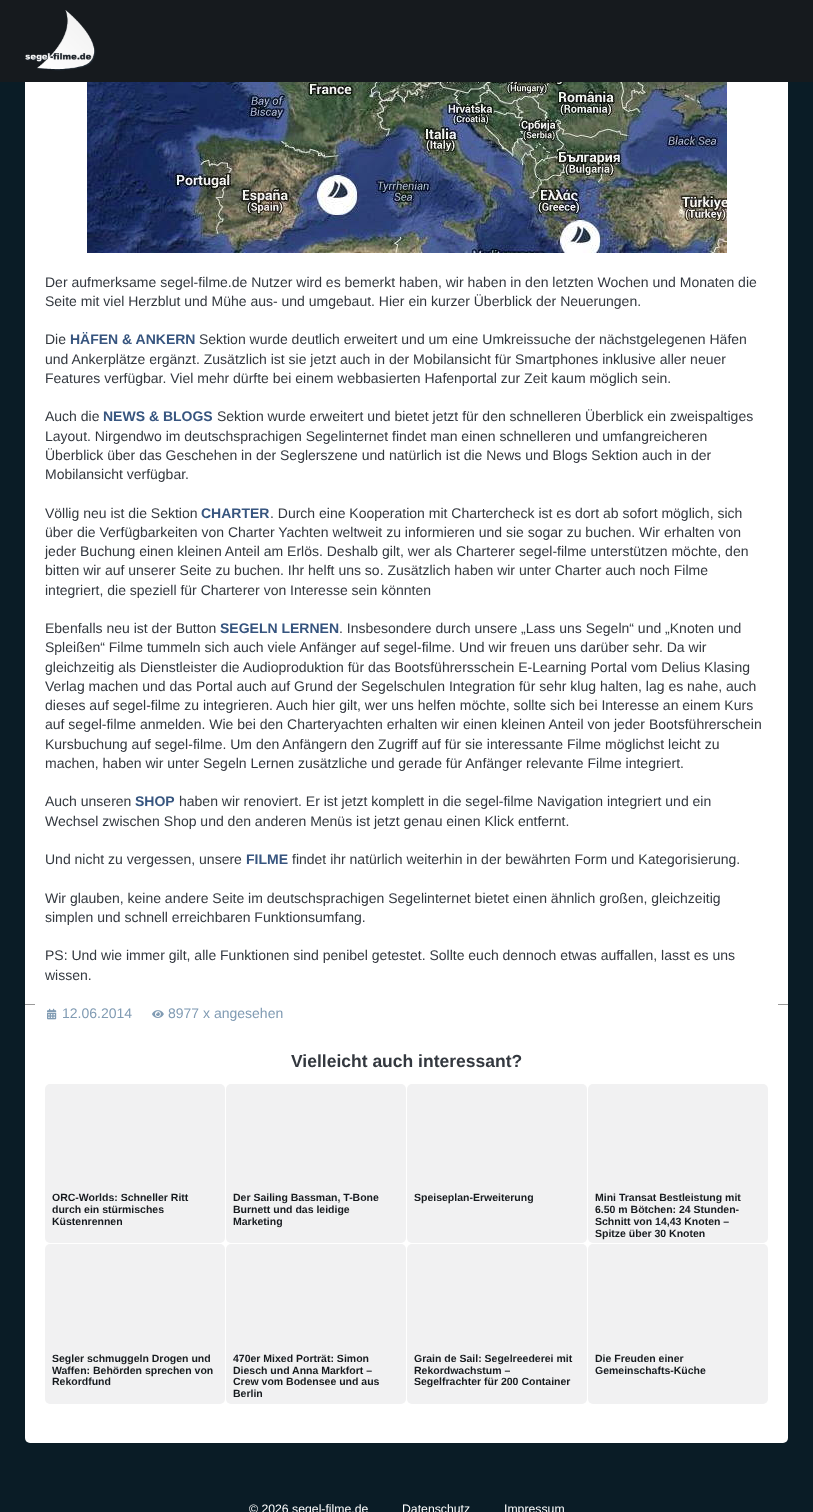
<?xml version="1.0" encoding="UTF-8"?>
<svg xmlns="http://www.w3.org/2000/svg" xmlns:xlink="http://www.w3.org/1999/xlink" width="813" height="1512">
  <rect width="100%" height="100%" fill="#0a1c26" />
  <rect x="25" y="-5" width="763" height="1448" rx="5" fill="#ffffff" />
  <rect width="813" height="82" fill="#161a1e" />
  <image x="25" y="10" width="71" height="61" xlink:href="image1.png" />
  <image x="87" y="82" width="640" height="171" xlink:href="image2.png" />
  <rect x="25" y="1004" width="10" height="1" fill="#999999" />
  <rect x="778" y="1004" width="10" height="1" fill="#999999" />
  <image x="47" y="1008" width="10" height="12" xlink:href="image3.png" />
  <image x="152" y="1010" width="12" height="8" xlink:href="image4.png" />
  <rect x="45" y="1084" width="180" height="159" rx="5" fill="#f1f1f2" />
  <rect x="226" y="1084" width="180" height="159" rx="5" fill="#f1f1f2" />
  <rect x="407" y="1084" width="180" height="159" rx="5" fill="#f1f1f2" />
  <rect x="588" y="1084" width="180" height="159" rx="5" fill="#f1f1f2" />
  <rect x="45" y="1244" width="180" height="160" rx="5" fill="#f1f1f2" />
  <rect x="226" y="1244" width="180" height="160" rx="5" fill="#f1f1f2" />
  <rect x="407" y="1244" width="180" height="160" rx="5" fill="#f1f1f2" />
  <rect x="588" y="1244" width="180" height="160" rx="5" fill="#f1f1f2" />
  <text x="45" y="287" style="font-family: Liberation Sans; font-size: 14px; fill: #33383f">Der aufmerksame segel-filme.de Nutzer wird es bemerkt haben, wir haben in den letzten Wochen und Monaten die</text>
  <text x="45" y="306" style="font-family: Liberation Sans; font-size: 14px; fill: #33383f">Seite mit viel Herzblut und Mühe aus- und umgebaut. Hier ein kurzer Überblick der Neuerungen.</text>
  <text x="45" y="344" style="font-family: Liberation Sans; font-size: 14px; fill: #33383f">Die</text>
  <text x="70" y="344" style="font-family: Liberation Sans; font-size: 14px; font-weight: bold; fill: #37557f">HÄFEN &amp; ANKERN</text>
  <text x="199" y="344" style="font-family: Liberation Sans; font-size: 14px; fill: #33383f">Sektion wurde deutlich erweitert und um eine Umkreissuche der nächstgelegenen Häfen</text>
  <text x="45" y="364" style="font-family: Liberation Sans; font-size: 14px; fill: #33383f">und Ankerplätze ergänzt. Zusätzlich ist sie jetzt auch in der Mobilansicht für Smartphones inklusive aller neuer</text>
  <text x="45" y="383" style="font-family: Liberation Sans; font-size: 14px; fill: #33383f">Features verfügbar. Viel mehr dürfte bei einem webbasierten Hafenportal zur Zeit kaum möglich sein.</text>
  <text x="45" y="421" style="font-family: Liberation Sans; font-size: 14px; fill: #33383f">Auch die</text>
  <text x="103" y="421" style="font-family: Liberation Sans; font-size: 14px; font-weight: bold; fill: #37557f">NEWS &amp; BLOGS</text>
  <text x="217" y="421" style="font-family: Liberation Sans; font-size: 14px; fill: #33383f">Sektion wurde erweitert und bietet jetzt für den schnelleren Überblick ein zweispaltiges</text>
  <text x="45" y="441" style="font-family: Liberation Sans; font-size: 14px; fill: #33383f">Layout. Nirgendwo im deutschsprachigen Segelinternet findet man einen schnelleren und umfangreicheren</text>
  <text x="45" y="460" style="font-family: Liberation Sans; font-size: 14px; fill: #33383f">Überblick über das Geschehen in der Seglerszene und natürlich ist die News und Blogs Sektion auch in der</text>
  <text x="45" y="479" style="font-family: Liberation Sans; font-size: 14px; fill: #33383f">Mobilansicht verfügbar.</text>
  <text x="45" y="518" style="font-family: Liberation Sans; font-size: 14px; fill: #33383f">Völlig neu ist die Sektion</text>
  <text x="201" y="518" style="font-family: Liberation Sans; font-size: 14px; font-weight: bold; fill: #37557f">CHARTER</text>
  <text x="270" y="518" style="font-family: Liberation Sans; font-size: 14px; fill: #33383f">. Durch eine Kooperation mit Chartercheck ist es dort ab sofort möglich, sich</text>
  <text x="45" y="537" style="font-family: Liberation Sans; font-size: 14px; fill: #33383f">über die Verfügbarkeiten von Charter Yachten weltweit zu informieren und sie sogar zu buchen. Wir erhalten von</text>
  <text x="45" y="556" style="font-family: Liberation Sans; font-size: 14px; fill: #33383f">jeder Buchung einen kleinen Anteil am Erlös. Deshalb gilt, wer als Charterer segel-filme unterstützen möchte, den</text>
  <text x="45" y="575" style="font-family: Liberation Sans; font-size: 14px; fill: #33383f">bitten wir auf unserer Seite zu buchen. Ihr helft uns so. Zusätzlich haben wir unter Charter auch noch Filme</text>
  <text x="45" y="595" style="font-family: Liberation Sans; font-size: 14px; fill: #33383f">integriert, die speziell für Charterer von Interesse sein könnten</text>
  <text x="45" y="633" style="font-family: Liberation Sans; font-size: 14px; fill: #33383f">Ebenfalls neu ist der Button</text>
  <text x="220" y="633" style="font-family: Liberation Sans; font-size: 14px; font-weight: bold; fill: #37557f">SEGELN LERNEN</text>
  <text x="339" y="633" style="font-family: Liberation Sans; font-size: 14px; fill: #33383f">. Insbesondere durch unsere „Lass uns Segeln“ und „Knoten und</text>
  <text x="45" y="652" style="font-family: Liberation Sans; font-size: 14px; fill: #33383f">Spleißen“ Filme tummeln sich auch viele Anfänger auf segel-filme. Und wir freuen uns darüber sehr. Da wir</text>
  <text x="45" y="672" style="font-family: Liberation Sans; font-size: 14px; fill: #33383f">gleichzeitig als Dienstleister die Audioproduktion für das Bootsführersschein E-Learning Portal vom Delius Klasing</text>
  <text x="45" y="691" style="font-family: Liberation Sans; font-size: 14px; fill: #33383f">Verlag machen und das Portal auch auf Grund der Segelschulen Integration für sehr klug halten, lag es nahe, auch</text>
  <text x="45" y="710" style="font-family: Liberation Sans; font-size: 14px; fill: #33383f">dieses auf segel-filme zu integrieren. Auch hier gilt, wer uns helfen möchte, sollte sich bei Interesse an einem Kurs</text>
  <text x="45" y="729" style="font-family: Liberation Sans; font-size: 14px; fill: #33383f">auf segel-filme anmelden. Wie bei den Charteryachten erhalten wir einen kleinen Anteil von jeder Bootsführerschein</text>
  <text x="45" y="749" style="font-family: Liberation Sans; font-size: 14px; fill: #33383f">Kursbuchung auf segel-filme. Um den Anfängern den Zugriff auf für sie interessante Filme möglichst leicht zu</text>
  <text x="45" y="768" style="font-family: Liberation Sans; font-size: 14px; fill: #33383f">machen, haben wir unter Segeln Lernen zusätzliche und gerade für Anfänger relevante Filme integriert.</text>
  <text x="45" y="806" style="font-family: Liberation Sans; font-size: 14px; fill: #33383f">Auch unseren</text>
  <text x="135" y="806" style="font-family: Liberation Sans; font-size: 14px; font-weight: bold; fill: #37557f">SHOP</text>
  <text x="179" y="806" style="font-family: Liberation Sans; font-size: 14px; fill: #33383f">haben wir renoviert. Er ist jetzt komplett in die segel-filme Navigation integriert und ein</text>
  <text x="45" y="826" style="font-family: Liberation Sans; font-size: 14px; fill: #33383f">Wechsel zwischen Shop und den anderen Menüs ist jetzt genau einen Klick entfernt.</text>
  <text x="45" y="864" style="font-family: Liberation Sans; font-size: 14px; fill: #33383f">Und nicht zu vergessen, unsere</text>
  <text x="246" y="864" style="font-family: Liberation Sans; font-size: 14px; font-weight: bold; fill: #37557f">FILME</text>
  <text x="292" y="864" style="font-family: Liberation Sans; font-size: 14px; fill: #33383f">findet ihr natürlich weiterhin in der bewährten Form und Kategorisierung.</text>
  <text x="45" y="903" style="font-family: Liberation Sans; font-size: 14px; fill: #33383f">Wir glauben, keine andere Seite im deutschsprachigen Segelinternet bietet einen ähnlich großen, gleichzeitig</text>
  <text x="45" y="922" style="font-family: Liberation Sans; font-size: 14px; fill: #33383f">simplen und schnell erreichbaren Funktionsumfang.</text>
  <text x="45" y="960" style="font-family: Liberation Sans; font-size: 14px; fill: #33383f">PS: Und wie immer gilt, alle Funktionen sind penibel getestet. Sollte euch dennoch etwas auffallen, lasst es uns</text>
  <text x="45" y="980" style="font-family: Liberation Sans; font-size: 14px; fill: #33383f">wissen.</text>
  <text x="62" y="1018" style="font-family: Liberation Sans; font-size: 14px; fill: #809bb3">12.06.2014</text>
  <text x="168" y="1018" style="font-family: Liberation Sans; font-size: 14px; fill: #809bb3">8977 x angesehen</text>
  <text x="291" y="1067" style="font-family: Liberation Sans; font-size: 17.5px; font-weight: bold; fill: #33383f">Vielleicht auch interessant?</text>
  <text x="52" y="1201" style="font-family: Liberation Sans; font-size: 10.5px; font-weight: bold; fill: #161a1e">ORC-Worlds: Schneller Ritt</text>
  <text x="52" y="1213" style="font-family: Liberation Sans; font-size: 10.5px; font-weight: bold; fill: #161a1e">durch ein stürmisches</text>
  <text x="52" y="1225" style="font-family: Liberation Sans; font-size: 10.5px; font-weight: bold; fill: #161a1e">Küstenrennen</text>
  <text x="233" y="1201" style="font-family: Liberation Sans; font-size: 10.5px; font-weight: bold; fill: #161a1e">Der Sailing Bassman, T-Bone</text>
  <text x="233" y="1213" style="font-family: Liberation Sans; font-size: 10.5px; font-weight: bold; fill: #161a1e">Burnett und das leidige</text>
  <text x="233" y="1225" style="font-family: Liberation Sans; font-size: 10.5px; font-weight: bold; fill: #161a1e">Marketing</text>
  <text x="414" y="1201" style="font-family: Liberation Sans; font-size: 10.5px; font-weight: bold; fill: #161a1e">Speiseplan-Erweiterung</text>
  <text x="595" y="1201" style="font-family: Liberation Sans; font-size: 10.5px; font-weight: bold; fill: #161a1e">Mini Transat Bestleistung mit</text>
  <text x="595" y="1213" style="font-family: Liberation Sans; font-size: 10.5px; font-weight: bold; fill: #161a1e">6.50 m Bötchen: 24 Stunden-</text>
  <text x="595" y="1225" style="font-family: Liberation Sans; font-size: 10.5px; font-weight: bold; fill: #161a1e">Schnitt von 14,43 Knoten –</text>
  <text x="595" y="1237" style="font-family: Liberation Sans; font-size: 10.5px; font-weight: bold; fill: #161a1e">Spitze über 30 Knoten</text>
  <text x="52" y="1362" style="font-family: Liberation Sans; font-size: 10.5px; font-weight: bold; fill: #161a1e">Segler schmuggeln Drogen und</text>
  <text x="52" y="1374" style="font-family: Liberation Sans; font-size: 10.5px; font-weight: bold; fill: #161a1e">Waffen: Behörden sprechen von</text>
  <text x="52" y="1385" style="font-family: Liberation Sans; font-size: 10.5px; font-weight: bold; fill: #161a1e">Rekordfund</text>
  <text x="233" y="1362" style="font-family: Liberation Sans; font-size: 10.5px; font-weight: bold; fill: #161a1e">470er Mixed Porträt: Simon</text>
  <text x="233" y="1374" style="font-family: Liberation Sans; font-size: 10.5px; font-weight: bold; fill: #161a1e">Diesch und Anna Markfort –</text>
  <text x="233" y="1385" style="font-family: Liberation Sans; font-size: 10.5px; font-weight: bold; fill: #161a1e">Crew vom Bodensee und aus</text>
  <text x="233" y="1397" style="font-family: Liberation Sans; font-size: 10.5px; font-weight: bold; fill: #161a1e">Berlin</text>
  <text x="414" y="1362" style="font-family: Liberation Sans; font-size: 10.5px; font-weight: bold; fill: #161a1e">Grain de Sail: Segelreederei mit</text>
  <text x="414" y="1374" style="font-family: Liberation Sans; font-size: 10.5px; font-weight: bold; fill: #161a1e">Rekordwachstum –</text>
  <text x="414" y="1385" style="font-family: Liberation Sans; font-size: 10.5px; font-weight: bold; fill: #161a1e">Segelfrachter für 200 Container</text>
  <text x="595" y="1362" style="font-family: Liberation Sans; font-size: 10.5px; font-weight: bold; fill: #161a1e">Die Freuden einer</text>
  <text x="595" y="1374" style="font-family: Liberation Sans; font-size: 10.5px; font-weight: bold; fill: #161a1e">Gemeinschafts-Küche</text>
  <text x="249" y="1513" style="font-family: Liberation Sans; font-size: 12.25px; fill: #ffffff">© 2026 segel-filme.de</text>
  <text x="402" y="1513" style="font-family: Liberation Sans; font-size: 12.25px; fill: #ffffff">Datenschutz</text>
  <text x="504" y="1513" style="font-family: Liberation Sans; font-size: 12.25px; fill: #ffffff">Impressum</text>
</svg>
